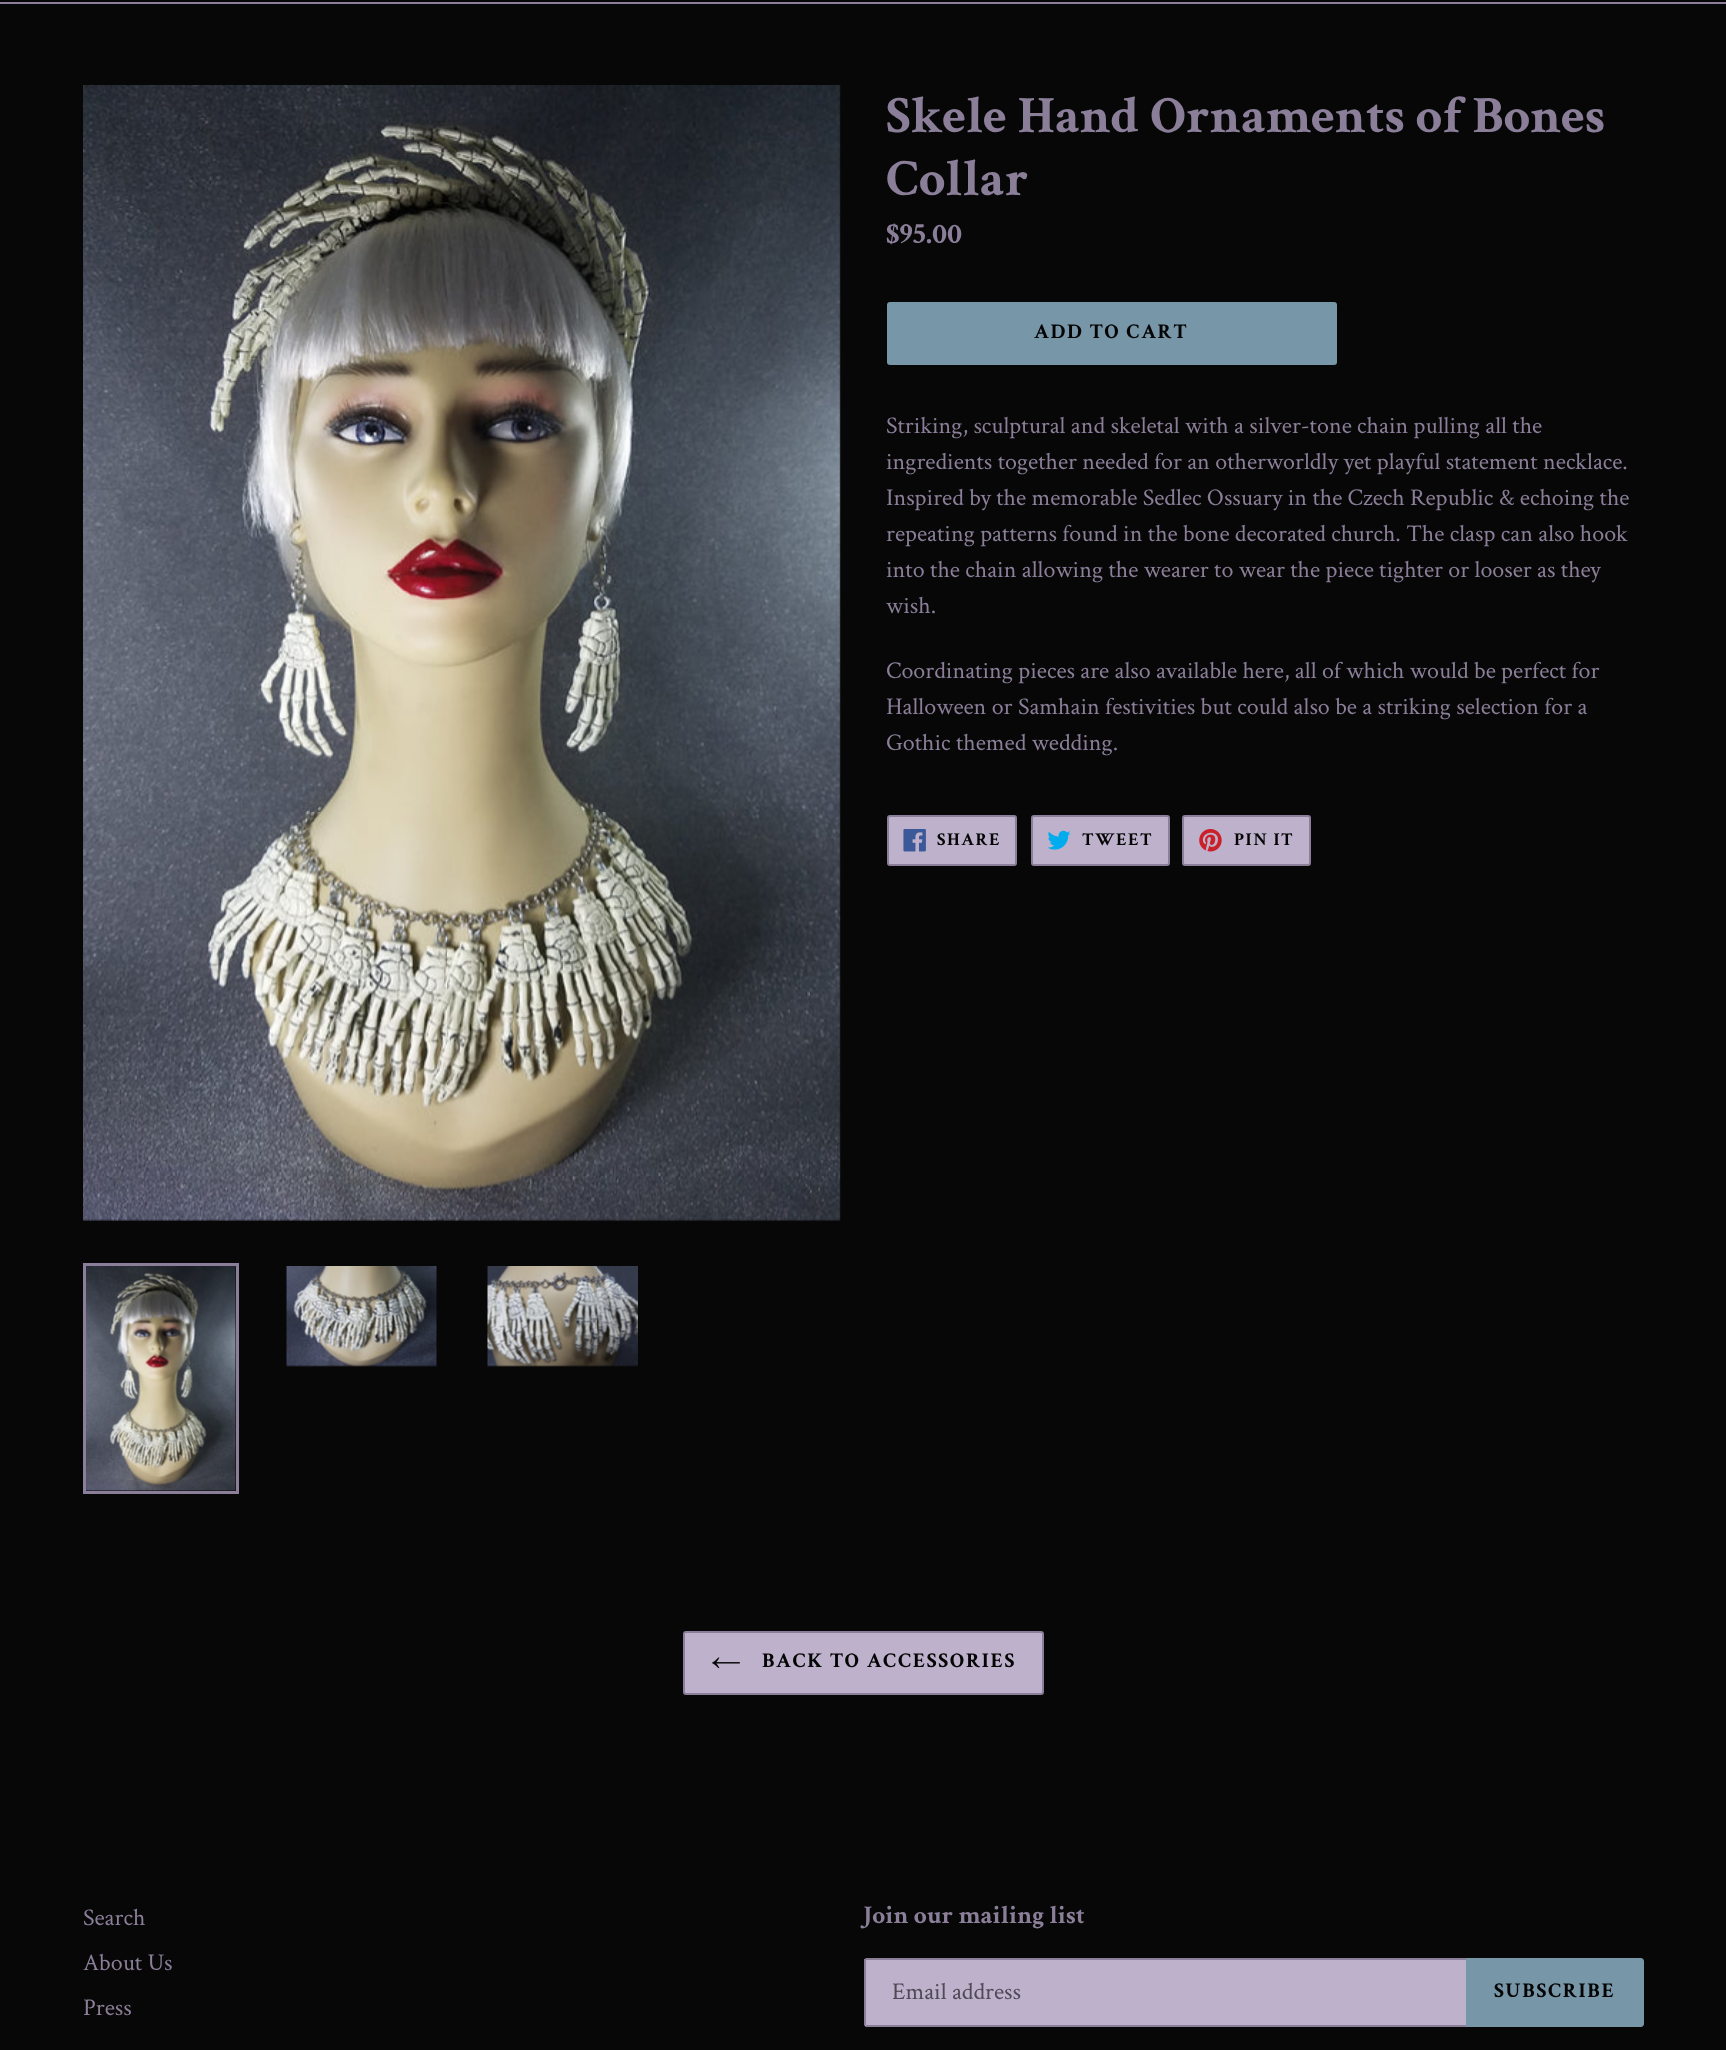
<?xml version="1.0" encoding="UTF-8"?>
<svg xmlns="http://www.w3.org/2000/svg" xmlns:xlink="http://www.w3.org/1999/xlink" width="1726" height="2050">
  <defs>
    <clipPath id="clip1"><rect x="893" y="1976" width="546" height="31" /></clipPath>
  </defs>
  <rect width="100%" height="100%" fill="#070707" />
  <rect y="2" width="1726" height="2" fill="#8a7e98" />
  <image x="83" y="85" width="758" height="1136" xlink:href="image1.png" />
  <rect x="84.5" y="1264.5" width="153" height="228" fill="none" stroke="#8a7e98" stroke-width="3" />
  <image x="86" y="1266" width="150" height="225" xlink:href="image2.png" />
  <image x="286" y="1266" width="151" height="101" xlink:href="image3.png" />
  <image x="487" y="1266" width="151" height="101" xlink:href="image4.png" />
  <rect x="887" y="302" width="450" height="63" rx="3" fill="#7796a8" />
  <rect x="888" y="816" width="128" height="49" rx="2" fill="#bdb1cc" stroke="#8a7e98" stroke-width="2" />
  <image x="903" y="829" width="23" height="23" xlink:href="image5.png" />
  <rect x="1032" y="816" width="137" height="49" rx="2" fill="#bdb1cc" stroke="#8a7e98" stroke-width="2" />
  <image x="1047" y="830" width="24" height="20" xlink:href="image6.png" />
  <rect x="1183" y="816" width="127" height="49" rx="2" fill="#bdb1cc" stroke="#8a7e98" stroke-width="2" />
  <image x="1199" y="829" width="23" height="23" xlink:href="image7.png" />
  <rect x="684" y="1632" width="359" height="62" rx="2" fill="#bdb1cc" stroke="#8a7e98" stroke-width="2" />
  <image x="712" y="1657" width="28" height="12" xlink:href="image8.png" />
  <path d="M 867 1958 h 599 v 69 h -599 c -1.5 0 -3 -1.5 -3 -3 v -63 c 0 -1.5 1.5 -3 3 -3 z" fill="#bdb1cc" />
  <rect x="866" y="1958" width="600" height="2" fill="#8a7e98" />
  <rect x="866" y="2025" width="600" height="2" fill="#8a7e98" />
  <rect x="864" y="1959" width="2" height="66" fill="#8a7e98" />
  <path d="M 1466 1958 h 175 c 1.5 0 3 1.5 3 3 v 63 c 0 1.5 -1.5 3 -3 3 h -175 z" fill="#7796a8" />
  <text x="886" y="132" style="font-family: Crimson Text; font-size: 52.5px; font-weight: bold; fill: #8a7e98">Skele Hand Ornaments of Bones</text>
  <text x="886" y="195" style="font-family: Crimson Text; font-size: 52.5px; font-weight: bold; fill: #8a7e98">Collar</text>
  <text x="886" y="243" style="font-family: Crimson Text; font-size: 30px; font-weight: bold; fill: #8a7e98">$95.00</text>
  <text x="1034" y="338" style="font-family: Crimson Text; font-size: 21px; font-weight: bold; letter-spacing: 1.7px; fill: #050505">ADD TO CART</text>
  <text x="886" y="433" style="font-family: Crimson Text; font-size: 24px; fill: #8a7e98">Striking, sculptural and skeletal with a silver-tone chain pulling all the</text>
  <text x="886" y="469" style="font-family: Crimson Text; font-size: 24px; fill: #8a7e98">ingredients together needed for an otherworldly yet playful statement necklace.</text>
  <text x="886" y="505" style="font-family: Crimson Text; font-size: 24px; fill: #8a7e98">Inspired by the memorable Sedlec Ossuary in the Czech Republic &amp; echoing the</text>
  <text x="886" y="541" style="font-family: Crimson Text; font-size: 24px; fill: #8a7e98">repeating patterns found in the bone decorated church. The clasp can also hook</text>
  <text x="886" y="577" style="font-family: Crimson Text; font-size: 24px; fill: #8a7e98">into the chain allowing the wearer to wear the piece tighter or looser as they</text>
  <text x="886" y="613" style="font-family: Crimson Text; font-size: 24px; fill: #8a7e98">wish.</text>
  <text x="886" y="678" style="font-family: Crimson Text; font-size: 24px; fill: #8a7e98">Coordinating pieces are also available here, all of which would be perfect for</text>
  <text x="886" y="714" style="font-family: Crimson Text; font-size: 24px; fill: #8a7e98">Halloween or Samhain festivities but could also be a striking selection for a</text>
  <text x="886" y="750" style="font-family: Crimson Text; font-size: 24px; fill: #8a7e98">Gothic themed wedding.</text>
  <text x="937" y="845" style="font-family: Crimson Text; font-size: 18px; font-weight: bold; letter-spacing: 1.5px; fill: #050505">SHARE</text>
  <text x="1082" y="845" style="font-family: Crimson Text; font-size: 18px; font-weight: bold; letter-spacing: 1.5px; fill: #050505">TWEET</text>
  <text x="1234" y="845" style="font-family: Crimson Text; font-size: 18px; font-weight: bold; letter-spacing: 1.5px; fill: #050505">PIN IT</text>
  <text x="762" y="1667" style="font-family: Crimson Text; font-size: 21px; font-weight: bold; letter-spacing: 1.7px; fill: #050505">BACK TO ACCESSORIES</text>
  <text x="83" y="1925" style="font-family: Crimson Text; font-size: 24px; fill: #8a7e98">Search</text>
  <text x="83" y="1970" style="font-family: Crimson Text; font-size: 24px; fill: #8a7e98">About Us</text>
  <text x="83" y="2015" style="font-family: Crimson Text; font-size: 24px; fill: #8a7e98">Press</text>
  <text x="863" y="1923" style="font-family: Crimson Text; font-size: 25.5px; font-weight: bold; fill: #8a7e98">Join our mailing list</text>
  <g clip-path="url(#clip1)">
    <text x="892" y="1999" style="font-family: Crimson Text; font-size: 24px; fill: #504a56">Email address</text>
  </g>
  <text x="1494" y="1997" style="font-family: Crimson Text; font-size: 21px; font-weight: bold; letter-spacing: 1.7px; fill: #050505">SUBSCRIBE</text>
</svg>
